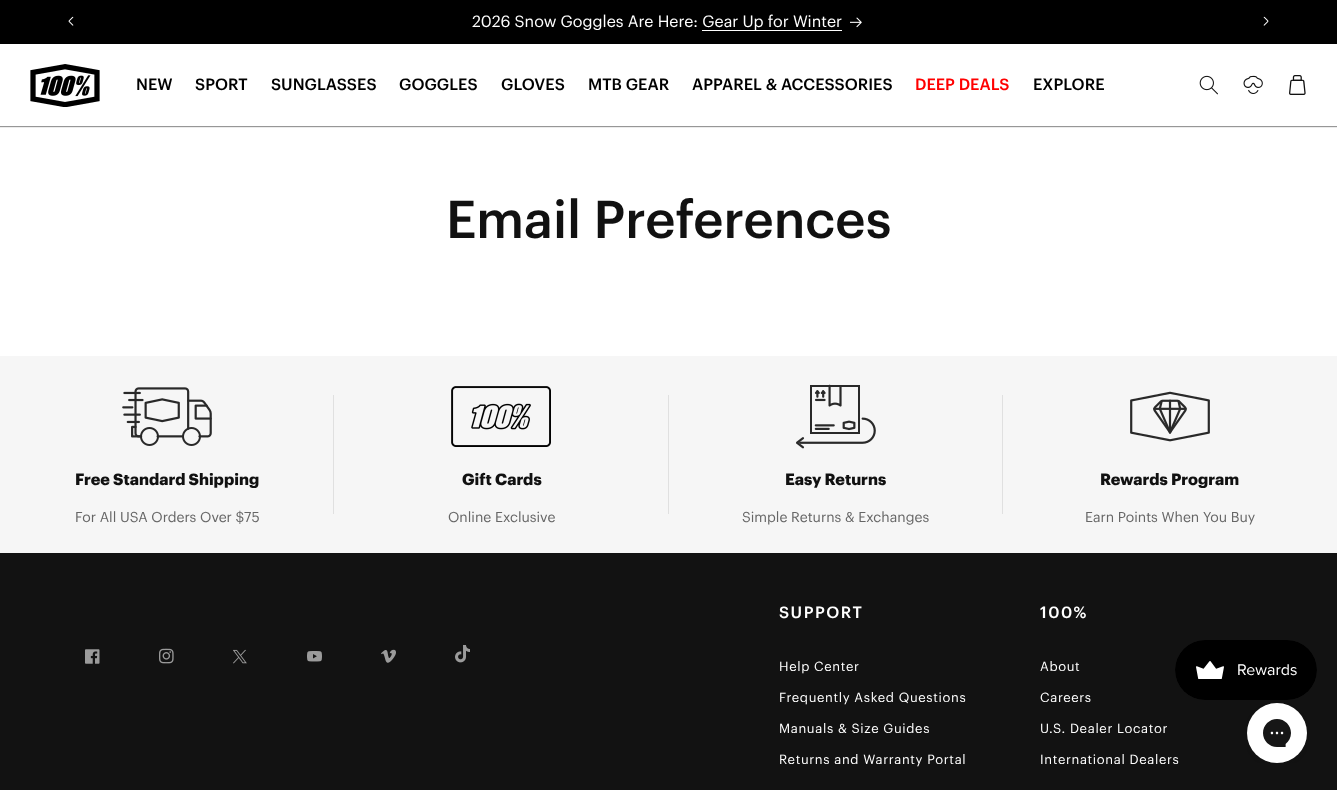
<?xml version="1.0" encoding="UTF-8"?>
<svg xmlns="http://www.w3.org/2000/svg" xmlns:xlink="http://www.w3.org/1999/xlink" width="1337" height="790">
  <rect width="100%" height="100%" fill="#ffffff" />
  <rect width="1337" height="44" fill="#000000" />
  <image x="68" y="16" width="6" height="10" xlink:href="image1.png" />
  <rect x="702" y="30" width="140" height="1" fill="#ffffff" />
  <image x="850" y="17" width="12" height="11" xlink:href="image2.png" />
  <image x="1263" y="16" width="6" height="10" xlink:href="image3.png" />
  <rect y="127" width="1337" height="1" fill="#ececec" />
  <rect y="126" width="1337" height="1" fill="#979797" />
  <image x="30" y="64" width="70" height="43" xlink:href="image4.png" />
  <image x="1199" y="75" width="19" height="20" xlink:href="image5.png" />
  <image x="1243" y="75" width="20" height="19" xlink:href="image6.png" />
  <image x="1289" y="75" width="17" height="20" xlink:href="image7.png" />
  <rect y="356" width="1337" height="197" fill="#f6f6f6" />
  <image x="122" y="387" width="90" height="59" xlink:href="image8.png" />
  <rect x="333" y="395" width="1" height="119" fill="#e0e0e0" />
  <image x="451" y="386" width="100" height="61" xlink:href="image9.png" />
  <rect x="668" y="395" width="1" height="119" fill="#e0e0e0" />
  <image x="796" y="384" width="80" height="65" xlink:href="image10.png" />
  <rect x="1002" y="395" width="1" height="119" fill="#e0e0e0" />
  <image x="1130" y="391" width="80" height="51" xlink:href="image11.png" />
  <rect y="553" width="1337" height="237" fill="#121212" />
  <image x="85" y="649" width="15" height="15" xlink:href="image12.png" />
  <image x="159" y="648" width="15" height="16" xlink:href="image13.png" />
  <image x="233" y="649" width="14" height="15" xlink:href="image14.png" />
  <image x="307" y="651" width="15" height="11" xlink:href="image15.png" />
  <image x="381" y="649" width="15" height="14" xlink:href="image16.png" />
  <image x="455" y="645" width="15" height="18" xlink:href="image17.png" />
  <image x="1175" y="640" width="142" height="60" xlink:href="image18.png" />
  <image x="1247" y="703" width="60" height="60" xlink:href="image19.png" />
  <text x="472" y="27" style="font-family: Graphik; font-size: 16px; fill: #ffffff">2026 Snow Goggles Are Here: Gear Up for Winter</text>
  <text x="136" y="90" style="font-family: Graphik; font-size: 16px; font-weight: 500; fill: #000000">NEW</text>
  <text x="195" y="90" style="font-family: Graphik; font-size: 16px; font-weight: 500; fill: #000000">SPORT</text>
  <text x="271" y="90" style="font-family: Graphik; font-size: 16px; font-weight: 500; fill: #000000">SUNGLASSES</text>
  <text x="399" y="90" style="font-family: Graphik; font-size: 16px; font-weight: 500; fill: #000000">GOGGLES</text>
  <text x="501" y="90" style="font-family: Graphik; font-size: 16px; font-weight: 500; fill: #000000">GLOVES</text>
  <text x="588" y="90" style="font-family: Graphik; font-size: 16px; font-weight: 500; fill: #000000">MTB GEAR</text>
  <text x="692" y="90" style="font-family: Graphik; font-size: 16px; font-weight: 500; fill: #000000">APPAREL &amp; ACCESSORIES</text>
  <text x="915" y="90" style="font-family: Graphik; font-size: 16px; font-weight: 500; fill: #ff0000">DEEP DEALS</text>
  <text x="1033" y="90" style="font-family: Graphik; font-size: 16px; font-weight: 500; fill: #000000">EXPLORE</text>
  <text x="446" y="238" style="font-family: Graphik; font-size: 52px; font-weight: 500; fill: #111111">Email Preferences</text>
  <text x="75" y="485" style="font-family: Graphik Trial; font-size: 16px; font-weight: bold; fill: #111111">Free Standard Shipping</text>
  <text x="75" y="522" style="font-family: Graphik; font-size: 14px; fill: #666666">For All USA Orders Over $75</text>
  <text x="462" y="485" style="font-family: Graphik Trial; font-size: 16px; font-weight: bold; fill: #111111">Gift Cards</text>
  <text x="448" y="522" style="font-family: Graphik; font-size: 14px; fill: #666666">Online Exclusive</text>
  <text x="785" y="485" style="font-family: Graphik Trial; font-size: 16px; font-weight: bold; fill: #111111">Easy Returns</text>
  <text x="742" y="522" style="font-family: Graphik; font-size: 14px; fill: #666666">Simple Returns &amp; Exchanges</text>
  <text x="1100" y="485" style="font-family: Graphik Trial; font-size: 16px; font-weight: bold; fill: #111111">Rewards Program</text>
  <text x="1085" y="522" style="font-family: Graphik; font-size: 14px; fill: #666666">Earn Points When You Buy</text>
  <text x="779" y="618" style="font-family: Graphik; font-size: 16px; font-weight: 500; letter-spacing: 1.5px; fill: #ffffff">SUPPORT</text>
  <text x="779" y="671" style="font-family: Graphik; font-size: 13px; letter-spacing: 0.65px; fill: #ffffff">Help Center</text>
  <text x="779" y="702" style="font-family: Graphik; font-size: 13px; letter-spacing: 0.65px; fill: #ffffff">Frequently Asked Questions</text>
  <text x="779" y="733" style="font-family: Graphik; font-size: 13px; letter-spacing: 0.65px; fill: #ffffff">Manuals &amp; Size Guides</text>
  <text x="779" y="764" style="font-family: Graphik; font-size: 13px; letter-spacing: 0.65px; fill: #ffffff">Returns and Warranty Portal</text>
  <text x="1040" y="618" style="font-family: Graphik; font-size: 16px; font-weight: 500; letter-spacing: 1.5px; fill: #ffffff">100%</text>
  <text x="1040" y="671" style="font-family: Graphik; font-size: 13px; letter-spacing: 0.65px; fill: #ffffff">About</text>
  <text x="1040" y="702" style="font-family: Graphik; font-size: 13px; letter-spacing: 0.65px; fill: #ffffff">Careers</text>
  <text x="1040" y="733" style="font-family: Graphik; font-size: 13px; letter-spacing: 0.65px; fill: #ffffff">U.S. Dealer Locator</text>
  <text x="1040" y="764" style="font-family: Graphik; font-size: 13px; letter-spacing: 0.65px; fill: #ffffff">International Dealers</text>
</svg>
